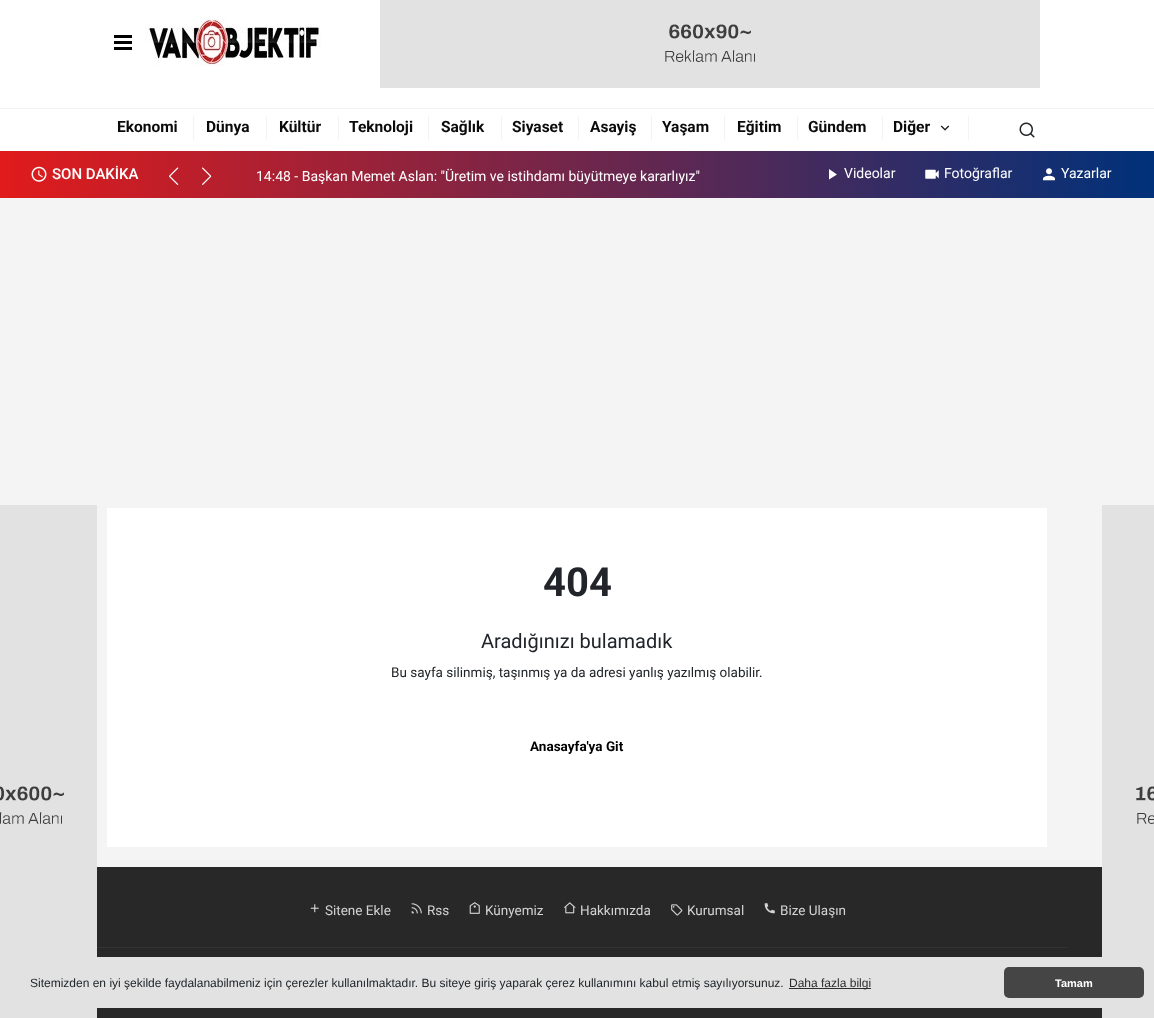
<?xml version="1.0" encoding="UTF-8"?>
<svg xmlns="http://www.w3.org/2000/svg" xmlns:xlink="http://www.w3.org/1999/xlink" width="1154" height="1018">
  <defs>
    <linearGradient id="g1" gradientUnits="userSpaceOnUse" x1="0" y1="175" x2="1154" y2="174"><stop offset="0" stop-color="#e11b1b" /><stop offset="1" stop-color="#00317a" /></linearGradient>
  </defs>
  <rect width="100%" height="100%" fill="#f4f4f4" />
  <rect width="1154" height="151" fill="#ffffff" />
  <rect x="114" y="35" width="18" height="3" fill="#000000" />
  <rect x="114" y="41" width="18" height="3" fill="#000000" />
  <rect x="114" y="47" width="18" height="3" fill="#000000" />
  <image x="145" y="18" width="176" height="48" xlink:href="image1.png" />
  <image x="380" y="0" width="660" height="88" xlink:href="image2.png" />
  <rect y="108" width="1154" height="1" fill="#f3f3f3" />
  <rect x="193" y="116" width="1" height="24" fill="#f3f3f3" />
  <rect x="266" y="116" width="1" height="24" fill="#f3f3f3" />
  <rect x="338" y="116" width="1" height="24" fill="#f3f3f3" />
  <rect x="428" y="116" width="1" height="24" fill="#f3f3f3" />
  <rect x="501" y="116" width="1" height="24" fill="#f3f3f3" />
  <rect x="578" y="116" width="1" height="24" fill="#f3f3f3" />
  <rect x="651" y="116" width="1" height="24" fill="#f3f3f3" />
  <rect x="724" y="116" width="1" height="24" fill="#f3f3f3" />
  <rect x="797" y="116" width="1" height="24" fill="#f3f3f3" />
  <rect x="882" y="116" width="1" height="24" fill="#f3f3f3" />
  <rect x="968" y="116" width="1" height="24" fill="#f3f3f3" />
  <image x="940" y="125" width="10" height="6" xlink:href="image3.png" />
  <image x="1019" y="122" width="16" height="16" xlink:href="image4.png" />
  <rect y="151" width="1154" height="47" fill="url(#g1)" />
  <image x="31" y="166" width="16" height="16" xlink:href="image5.png" />
  <image x="169" y="167" width="10" height="18" xlink:href="image6.png" />
  <image x="202" y="167" width="10" height="18" xlink:href="image7.png" />
  <path d="M 829 169 v 10.5 l 8 -5 z" fill="#ffffff" />
  <image x="925" y="169" width="14" height="10" xlink:href="image8.png" />
  <image x="1043" y="168" width="12" height="13" xlink:href="image9.png" />
  <image x="0" y="505" width="97" height="513" xlink:href="image10.png" />
  <rect x="107" y="508" width="940" height="339" fill="#ffffff" />
  <image x="1102" y="505" width="52" height="513" xlink:href="image11.png" />
  <rect x="97" y="867" width="1005" height="151" fill="#282828" />
  <image x="310" y="904" width="9" height="9" xlink:href="image12.png" />
  <image x="411" y="903" width="11" height="11" xlink:href="image13.png" />
  <image x="469" y="902" width="11" height="12" xlink:href="image14.png" />
  <image x="563" y="902" width="13" height="12" xlink:href="image15.png" />
  <image x="671" y="904" width="12" height="12" xlink:href="image16.png" />
  <image x="764" y="903" width="11" height="11" xlink:href="image17.png" />
  <rect x="97" y="947" width="970" height="1" fill="#333333" />
  <rect x="97" y="957" width="1005" height="51" fill="#e2e2e2" />
  <rect x="789" y="988" width="82" height="1" fill="#2d2d2d" />
  <rect x="1004" y="967" width="140" height="31" rx="5" fill="#454545" />
  <text x="117" y="132" style="font-family: Roboto; font-size: 15.5px; font-weight: bold; fill: #0a0a0a">Ekonomi</text>
  <text x="206" y="132" style="font-family: Roboto; font-size: 15.5px; font-weight: bold; fill: #0a0a0a">Dünya</text>
  <text x="279" y="132" style="font-family: Roboto; font-size: 15.5px; font-weight: bold; fill: #0a0a0a">Kültür</text>
  <text x="349" y="132" style="font-family: Roboto; font-size: 15.5px; font-weight: bold; fill: #0a0a0a">Teknoloji</text>
  <text x="441" y="132" style="font-family: Roboto; font-size: 15.5px; font-weight: bold; fill: #0a0a0a">Sağlık</text>
  <text x="512" y="132" style="font-family: Roboto; font-size: 15.5px; font-weight: bold; fill: #0a0a0a">Siyaset</text>
  <text x="590" y="132" style="font-family: Roboto; font-size: 15.5px; font-weight: bold; fill: #0a0a0a">Asayiş</text>
  <text x="662" y="132" style="font-family: Roboto; font-size: 15.5px; font-weight: bold; fill: #0a0a0a">Yaşam</text>
  <text x="737" y="132" style="font-family: Roboto; font-size: 15.5px; font-weight: bold; fill: #0a0a0a">Eğitim</text>
  <text x="808" y="132" style="font-family: Roboto; font-size: 15.5px; font-weight: bold; fill: #0a0a0a">Gündem</text>
  <text x="893" y="132" style="font-family: Roboto; font-size: 15.5px; font-weight: bold; fill: #0a0a0a">Diğer</text>
  <text x="52" y="179" style="font-family: Roboto; font-size: 15px; font-weight: 500; fill: #ffffff">SON DAKİKA</text>
  <text x="256" y="181" style="font-family: Roboto; font-size: 14px; fill: #ffffff">14:48 - Başkan Memet Aslan: "Üretim ve istihdamı büyütmeye kararlıyız"</text>
  <text x="844" y="178" style="font-family: Roboto; font-size: 14px; fill: #ffffff">Videolar</text>
  <text x="944" y="178" style="font-family: Roboto; font-size: 14px; fill: #ffffff">Fotoğraflar</text>
  <text x="1061" y="178" style="font-family: Roboto; font-size: 14px; fill: #ffffff">Yazarlar</text>
  <text x="543" y="596" style="font-family: Roboto; font-size: 40px; font-weight: bold; fill: #212529">404</text>
  <text x="481" y="648" style="font-family: Roboto; font-size: 20px; fill: #212529">Aradığınızı bulamadık</text>
  <text x="391" y="677" style="font-family: Roboto; font-size: 13.5px; fill: #212529">Bu sayfa silinmiş, taşınmış ya da adresi yanlış yazılmış olabilir.</text>
  <text x="530" y="751" style="font-family: Roboto; font-size: 13.5px; font-weight: bold; fill: #000000">Anasayfa'ya Git</text>
  <text x="325" y="915" style="font-family: Roboto; font-size: 13.5px; fill: #d3d3d3">Sitene Ekle</text>
  <text x="427" y="915" style="font-family: Roboto; font-size: 13.5px; fill: #d3d3d3">Rss</text>
  <text x="485" y="915" style="font-family: Roboto; font-size: 13.5px; fill: #d3d3d3">Künyemiz</text>
  <text x="580" y="915" style="font-family: Roboto; font-size: 13.5px; fill: #d3d3d3">Hakkımızda</text>
  <text x="687" y="915" style="font-family: Roboto; font-size: 13.5px; fill: #d3d3d3">Kurumsal</text>
  <text x="780" y="915" style="font-family: Roboto; font-size: 13.5px; fill: #d3d3d3">Bize Ulaşın</text>
  <text x="30" y="987" style="font-family: Liberation Sans; font-size: 12px; fill: #212529">Sitemizden en iyi şekilde faydalanabilmeniz için çerezler kullanılmaktadır. Bu siteye giriş yaparak çerez kullanımını kabul etmiş sayılıyorsunuz.</text>
  <text x="789" y="987" style="font-family: Liberation Sans; font-size: 12px; fill: #2d2d2d">Daha fazla bilgi</text>
  <text x="1055" y="987" style="font-family: Liberation Sans; font-size: 11px; font-weight: bold; fill: #ffffff">Tamam</text>
</svg>
